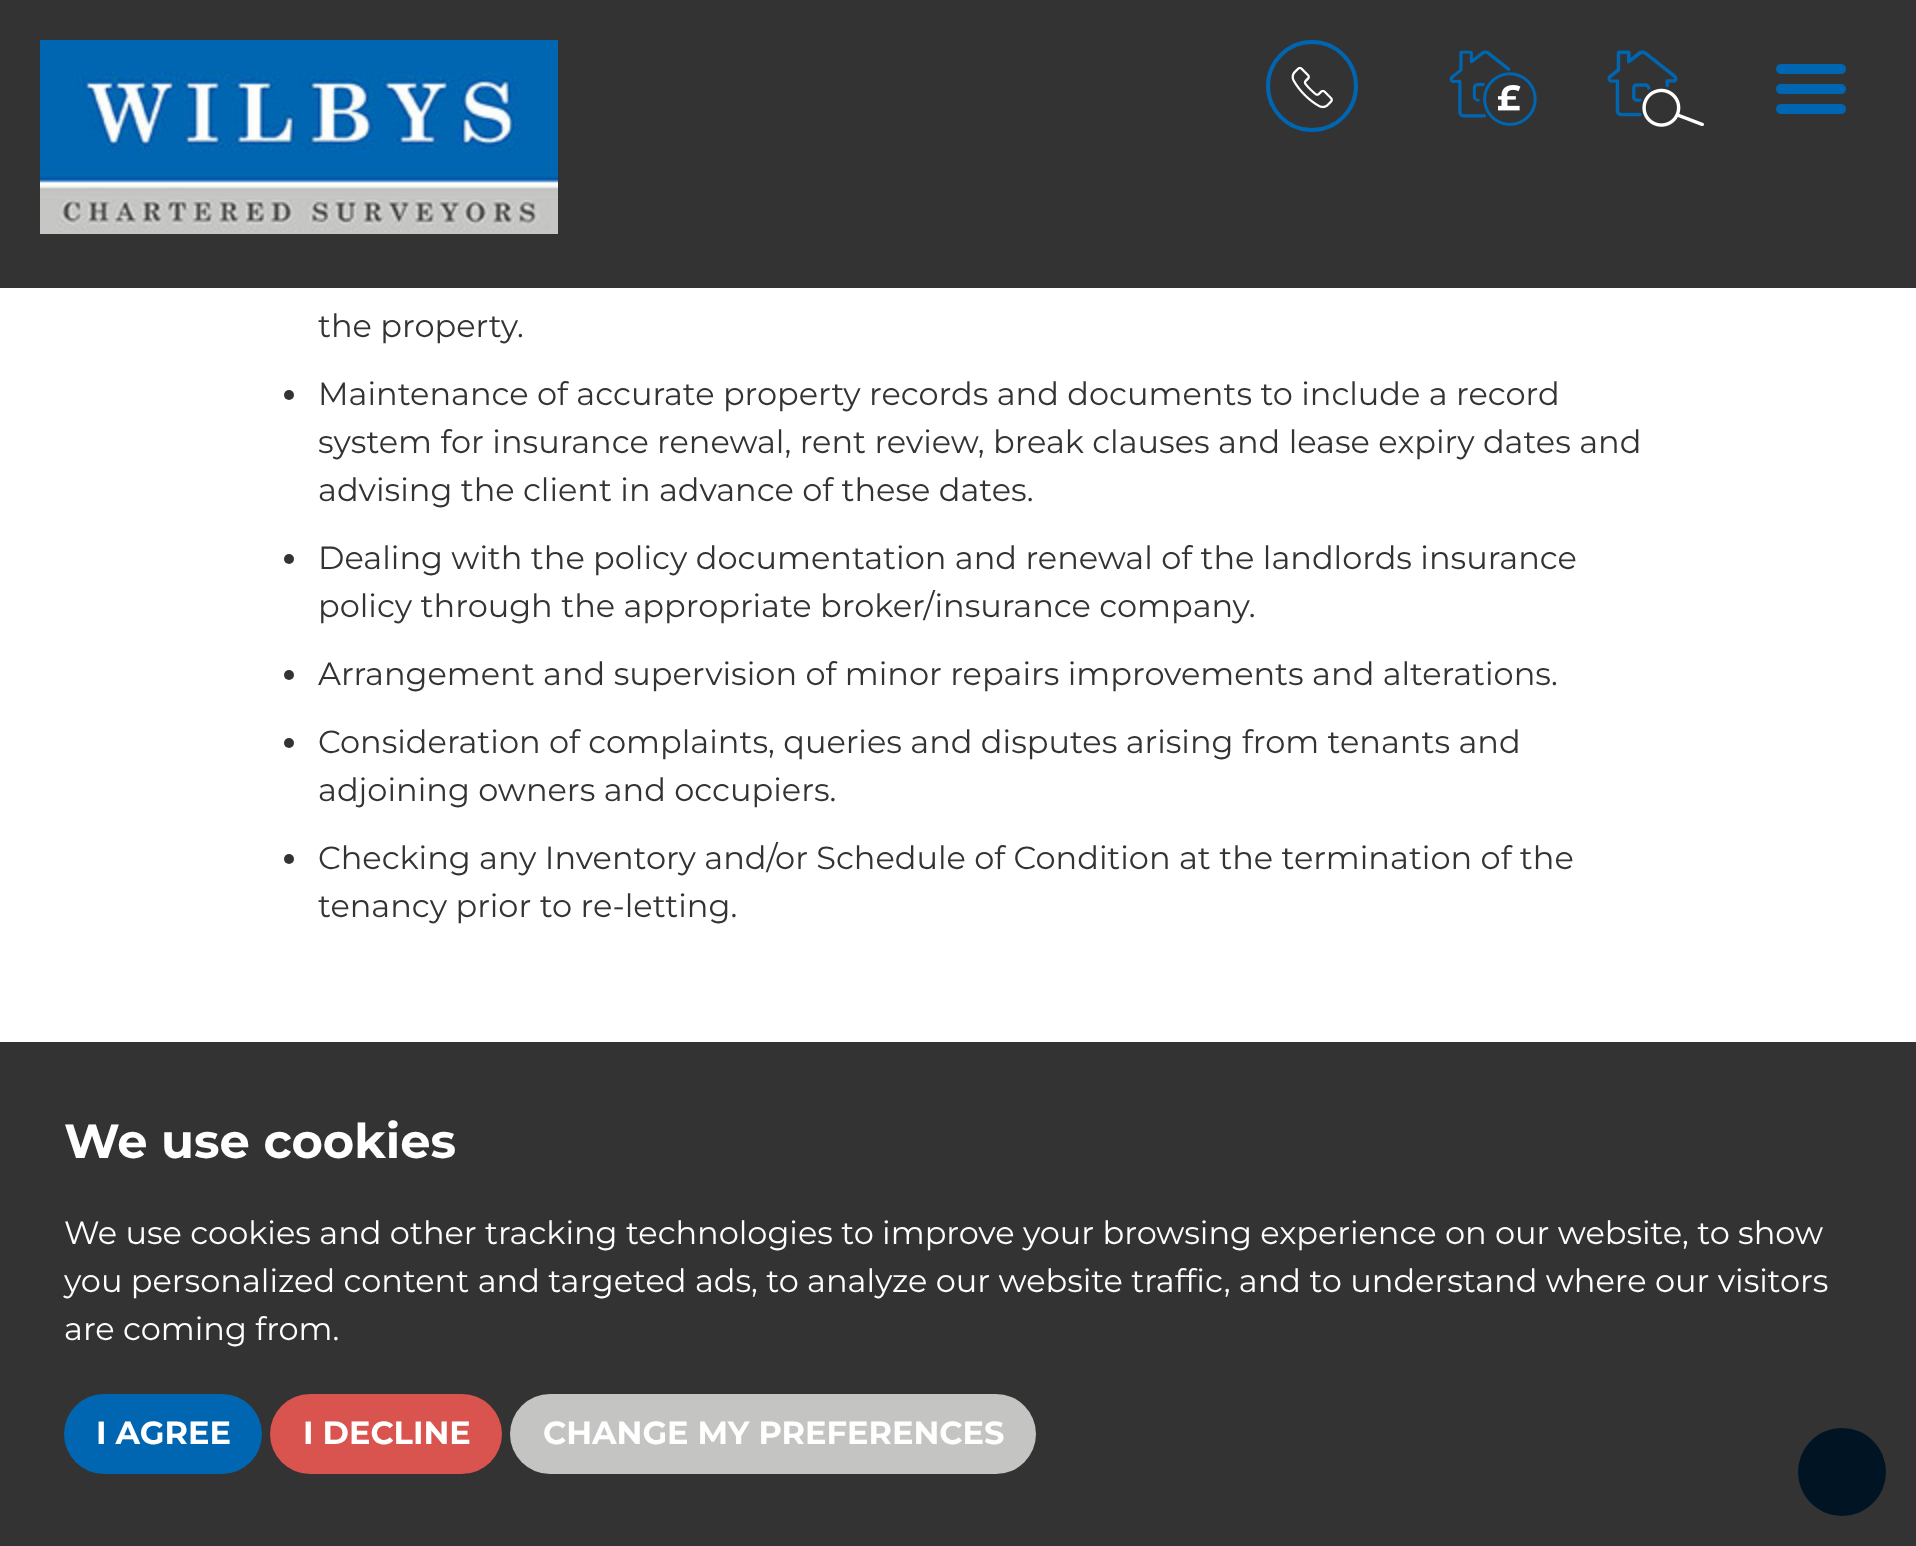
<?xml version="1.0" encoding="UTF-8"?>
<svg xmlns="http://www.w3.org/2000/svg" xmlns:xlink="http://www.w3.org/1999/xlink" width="1916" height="1546">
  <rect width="100%" height="100%" fill="#ffffff" />
  <rect width="1916" height="288" fill="#333333" />
  <image x="40" y="40" width="518" height="194" xlink:href="image1.png" />
  <circle cx="1312" cy="86" r="44" fill="none" stroke="#0066b1" stroke-width="4" />
  <image x="1291" y="66" width="42" height="43" xlink:href="image2.png" />
  <image x="1449" y="50" width="88" height="76" xlink:href="image3.png" />
  <image x="1607" y="50" width="97" height="77" xlink:href="image4.png" />
  <image x="1776" y="64" width="70" height="50" xlink:href="image5.png" />
  <circle cx="289" cy="395" r="5" fill="#333333" />
  <circle cx="289" cy="559" r="5" fill="#333333" />
  <circle cx="289" cy="675" r="5" fill="#333333" />
  <circle cx="289" cy="743" r="5" fill="#333333" />
  <circle cx="289" cy="859" r="5" fill="#333333" />
  <circle cx="1842" cy="1472" r="44" fill="#0066b1" />
  <rect y="1042" width="1916" height="504" fill="#000000" fill-opacity="0.8" />
  <rect x="64" y="1394" width="198" height="80" rx="40" fill="#0066b1" />
  <rect x="270" y="1394" width="232" height="80" rx="40" fill="#d9534f" />
  <rect x="510" y="1394" width="526" height="80" rx="40" fill="#c4c4c2" />
  <text x="318" y="337" style="font-family: Montserrat; font-size: 32px; fill: #333333">the property.</text>
  <text x="318" y="405" style="font-family: Montserrat; font-size: 32px; fill: #333333">Maintenance of accurate property records and documents to include a record</text>
  <text x="318" y="453" style="font-family: Montserrat; font-size: 32px; fill: #333333">system for insurance renewal, rent review, break clauses and lease expiry dates and</text>
  <text x="318" y="501" style="font-family: Montserrat; font-size: 32px; fill: #333333">advising the client in advance of these dates.</text>
  <text x="318" y="569" style="font-family: Montserrat; font-size: 32px; fill: #333333">Dealing with the policy documentation and renewal of the landlords insurance</text>
  <text x="318" y="617" style="font-family: Montserrat; font-size: 32px; fill: #333333">policy through the appropriate broker/insurance company.</text>
  <text x="318" y="685" style="font-family: Montserrat; font-size: 32px; fill: #333333">Arrangement and supervision of minor repairs improvements and alterations.</text>
  <text x="318" y="753" style="font-family: Montserrat; font-size: 32px; fill: #333333">Consideration of complaints, queries and disputes arising from tenants and</text>
  <text x="318" y="801" style="font-family: Montserrat; font-size: 32px; fill: #333333">adjoining owners and occupiers.</text>
  <text x="318" y="869" style="font-family: Montserrat; font-size: 32px; fill: #333333">Checking any Inventory and/or Schedule of Condition at the termination of the</text>
  <text x="318" y="917" style="font-family: Montserrat; font-size: 32px; fill: #333333">tenancy prior to re-letting.</text>
  <text x="64" y="1158" style="font-family: Montserrat; font-size: 48px; font-weight: bold; fill: #ffffff">We use cookies</text>
  <text x="64" y="1244" style="font-family: Montserrat; font-size: 32px; fill: #ffffff">We use cookies and other tracking technologies to improve your browsing experience on our website, to show</text>
  <text x="64" y="1292" style="font-family: Montserrat; font-size: 32px; fill: #ffffff">you personalized content and targeted ads, to analyze our website traffic, and to understand where our visitors</text>
  <text x="64" y="1340" style="font-family: Montserrat; font-size: 32px; fill: #ffffff">are coming from.</text>
  <text x="96" y="1444" style="font-family: Montserrat; font-size: 32px; font-weight: bold; fill: #ffffff">I AGREE</text>
  <text x="303" y="1444" style="font-family: Montserrat; font-size: 32px; font-weight: bold; fill: #ffffff">I DECLINE</text>
  <text x="543" y="1444" style="font-family: Montserrat; font-size: 32px; font-weight: bold; fill: #ffffff">CHANGE MY PREFERENCES</text>
</svg>
